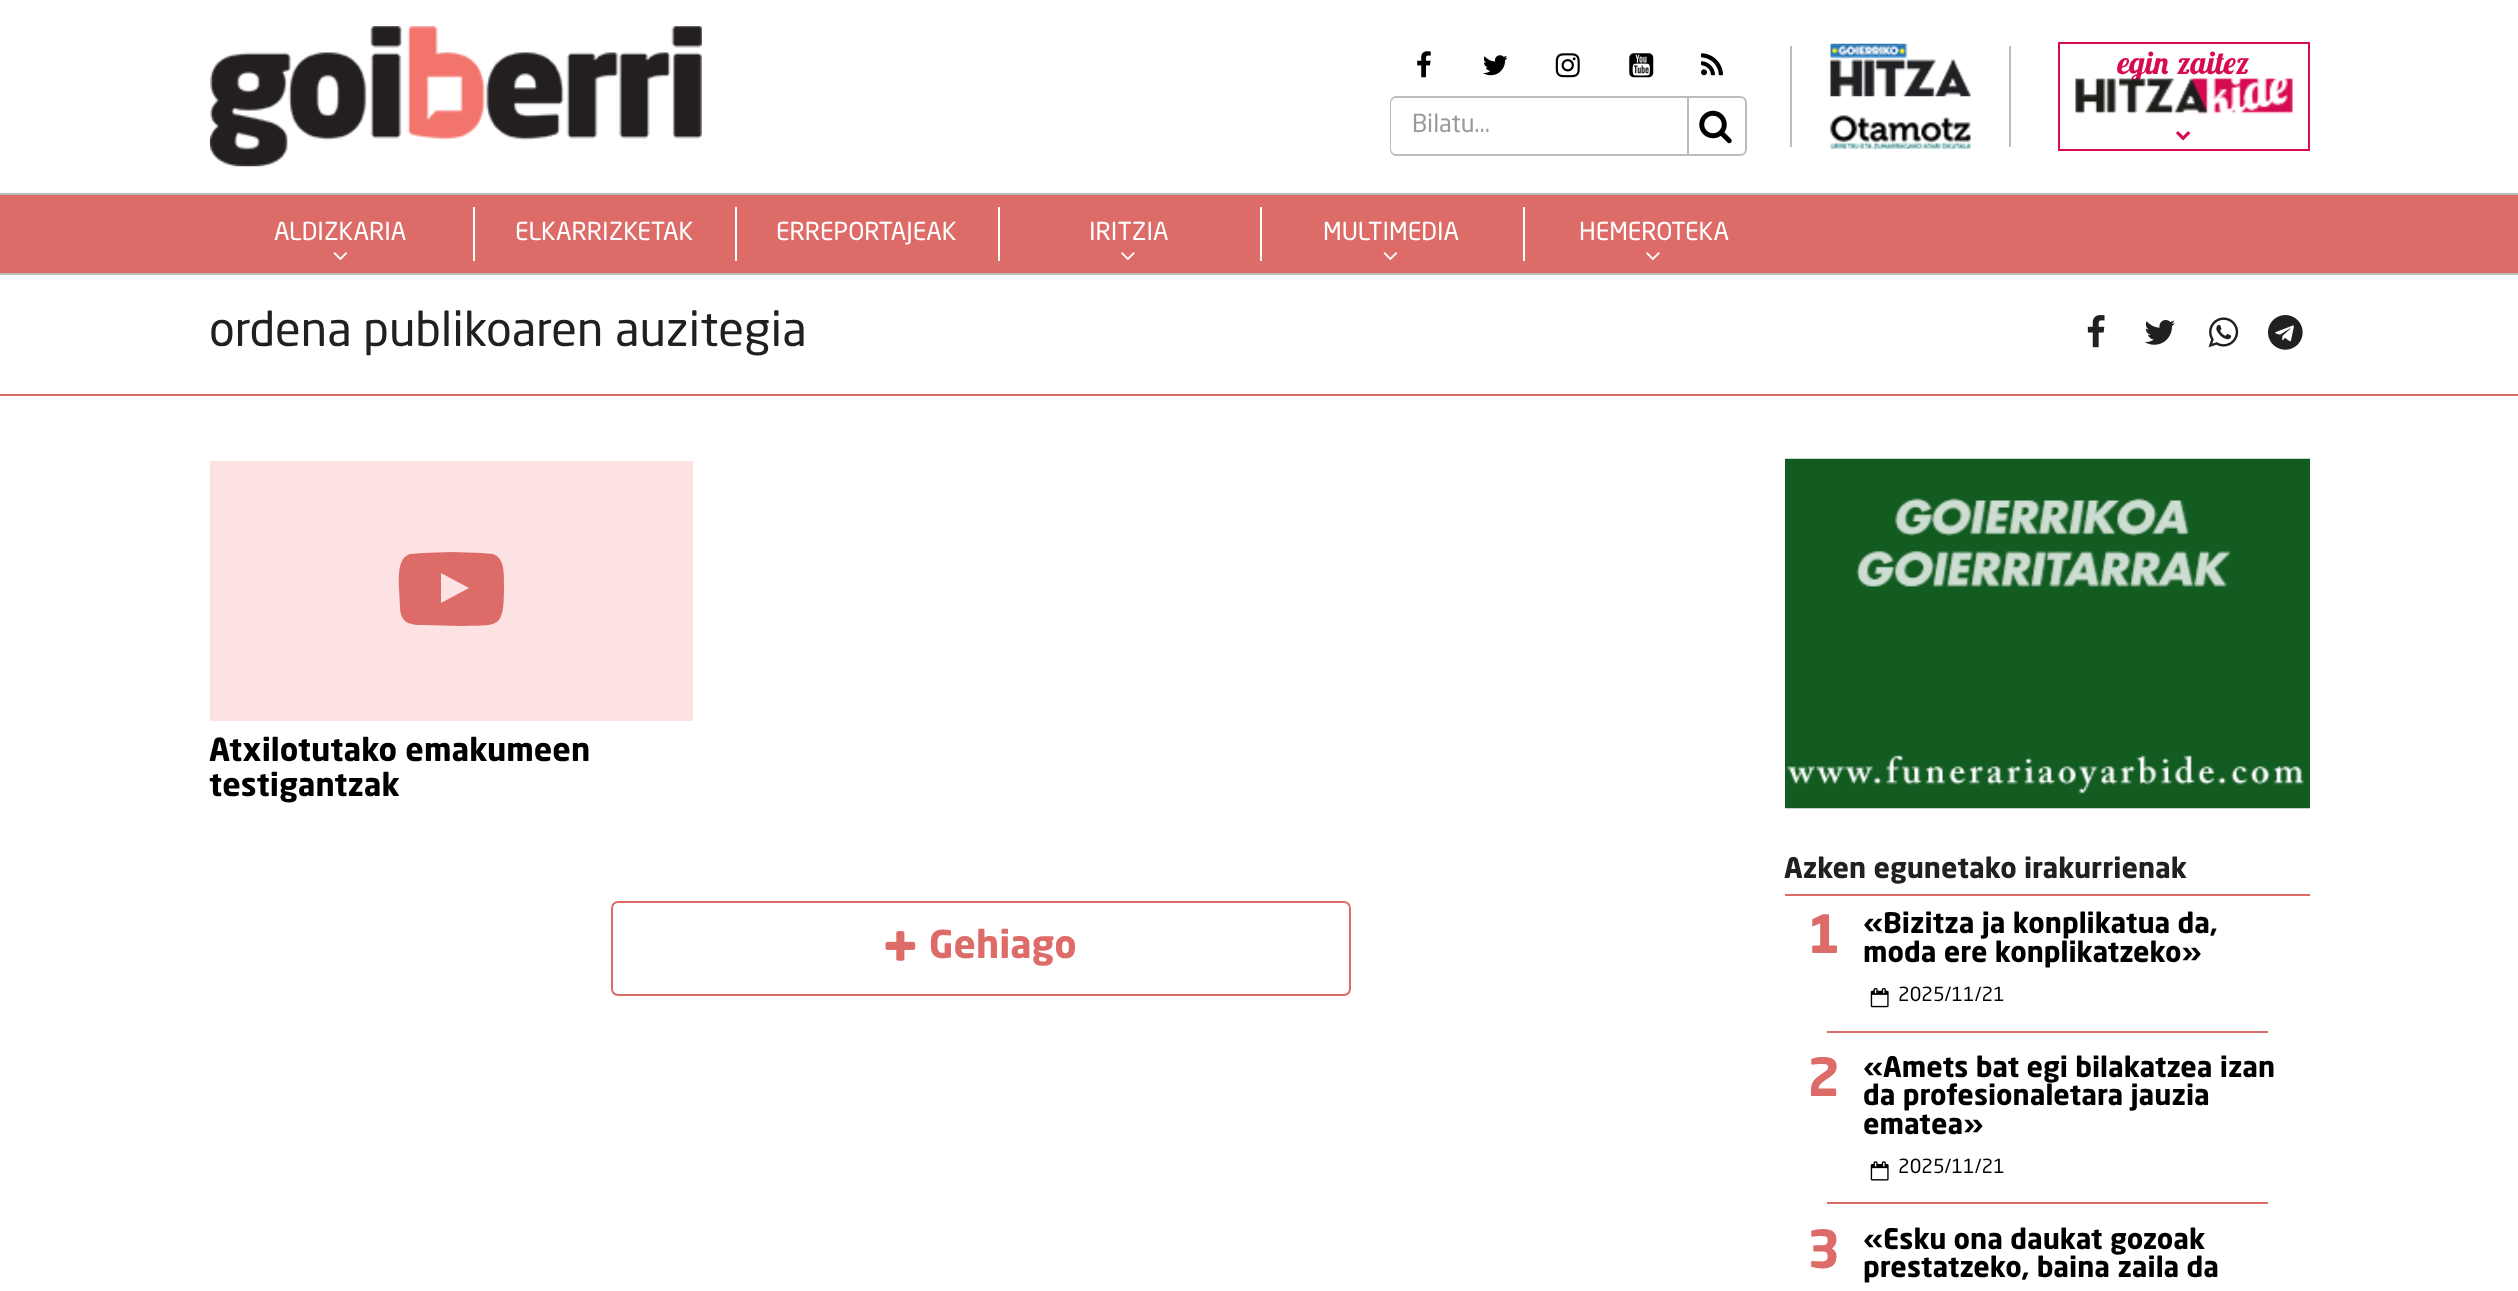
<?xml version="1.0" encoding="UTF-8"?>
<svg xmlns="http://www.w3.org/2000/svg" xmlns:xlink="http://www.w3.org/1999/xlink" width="2518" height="1291">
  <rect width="100%" height="100%" fill="#ffffff" />
  <image x="210" y="26" width="492" height="141" xlink:href="image1.png" />
  <rect x="1790" y="46" width="2" height="101" fill="#bcbcbc" />
  <image x="1830" y="43" width="141" height="54" xlink:href="image2.png" />
  <rect x="2009" y="46" width="2" height="101" fill="#bcbcbc" />
  <image x="1830" y="115" width="141" height="34" xlink:href="image3.png" />
  <rect x="2059" y="43" width="250" height="107" fill="none" stroke="#d60b51" stroke-width="2" />
  <image x="2176" y="131" width="15" height="10" xlink:href="image5.png" />
  <image x="1417" y="51" width="14" height="27" xlink:href="image6.png" />
  <image x="1483" y="55" width="25" height="21" xlink:href="image7.png" />
  <image x="1555" y="53" width="25" height="25" xlink:href="image8.png" />
  <image x="1629" y="53" width="25" height="25" xlink:href="image9.png" />
  <image x="1701" y="53" width="22" height="23" xlink:href="image10.png" />
  <path d="M 1396 96 h 293 v 60 h -293 c -3 0 -6 -3 -6 -7 v -46 c 0 -4 3 -7 6 -7 z m 0 2 h 293 v 56 h -293 c -2 0 -5 -2 -5 -5 v -46 c 0 -3 3 -5 5 -5 z" fill="#bcbcbc" fill-rule="evenodd" />
  <path d="M 1688 97 h 52 c 3.5 0 6 2.5 6 6 v 46 c 0 3.5 -2.5 6 -6 6 h -52 z" fill="#ffffff" stroke="#bcbcbc" stroke-width="2" />
  <image x="1699" y="110" width="33" height="34" xlink:href="image11.png" />
  <rect y="195" width="2518" height="78" fill="#dd6c69" />
  <rect y="193" width="2518" height="2" fill="#bcbcbc" />
  <rect y="273" width="2518" height="2" fill="#bcbcbc" />
  <image x="333" y="252" width="15" height="9" xlink:href="image12.png" />
  <rect x="473" y="207" width="2" height="54" fill="#ffffff" />
  <rect x="735" y="207" width="2" height="54" fill="#ffffff" />
  <rect x="998" y="207" width="2" height="54" fill="#ffffff" />
  <image x="1121" y="252" width="14" height="9" xlink:href="image13.png" />
  <rect x="1260" y="207" width="2" height="54" fill="#ffffff" />
  <image x="1383" y="252" width="15" height="9" xlink:href="image12.png" />
  <rect x="1523" y="207" width="2" height="54" fill="#ffffff" />
  <image x="1646" y="252" width="14" height="9" xlink:href="image13.png" />
  <rect y="394" width="2518" height="2" fill="#dd6c69" />
  <image x="2087" y="315" width="18" height="33" xlink:href="image14.png" />
  <image x="2144" y="320" width="31" height="25" xlink:href="image15.png" />
  <image x="2208" y="317" width="31" height="31" xlink:href="image16.png" />
  <image x="2268" y="315" width="35" height="35" xlink:href="image17.png" />
  <rect x="210" y="461" width="483" height="260" fill="#fce2e3" />
  <path d="M 441 603 l 28 -15 l -28 -15 z m 11 -51 l 30 1 l 11 1 c 12 4 11 21 11 31 c 0 44 -4 40 -42 41 l -39 -1 c -14 0 -22 -2 -23 -17 l -1 -20 c 0 -10 -2 -30 11 -34 l 13 -1 z" fill="#dd6c69" />
  <rect x="612" y="902" width="738" height="93" rx="6" fill="none" stroke="#dd6c69" stroke-width="2" />
  <image x="885" y="931" width="31" height="30" xlink:href="image18.png" />
  <image x="1785" y="458" width="525" height="351" xlink:href="image19.png" />
  <rect x="1785" y="894" width="525" height="2" fill="#dd6c69" />
  <image x="1870" y="988" width="19" height="20" xlink:href="image20.png" />
  <rect x="1827" y="1031" width="441" height="2" fill="#dd6c69" />
  <image x="1870" y="1161" width="19" height="20" xlink:href="image21.png" />
  <rect x="1827" y="1202" width="441" height="2" fill="#dd6c69" />
  <text x="2117" y="74" style="font-family: Lobster Two; font-size: 31.5px; font-weight: bold; font-style: italic; fill: #d60b51">egin zaitez</text>
  <image x="2075" y="77" width="218" height="37" xlink:href="image4.png" />
  <text x="1412" y="132" style="font-family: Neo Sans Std; font-size: 24.5px; fill: #999999">Bilatu...</text>
  <text x="274" y="240" style="font-family: Neo Sans Std; font-size: 24.5px; fill: #ffffff">ALDIZKARIA</text>
  <text x="515" y="240" style="font-family: Neo Sans Std; font-size: 24.5px; fill: #ffffff">ELKARRIZKETAK</text>
  <text x="776" y="240" style="font-family: Neo Sans Std; font-size: 24.5px; fill: #ffffff">ERREPORTAJEAK</text>
  <text x="1089" y="240" style="font-family: Neo Sans Std; font-size: 24.5px; fill: #ffffff">IRITZIA</text>
  <text x="1323" y="240" style="font-family: Neo Sans Std; font-size: 24.5px; fill: #ffffff">MULTIMEDIA</text>
  <text x="1579" y="240" style="font-family: Neo Sans Std; font-size: 24.5px; fill: #ffffff">HEMEROTEKA</text>
  <text x="209" y="346" style="font-family: Neo Sans Std; font-size: 47.25px; fill: #202020">ordena publikoaren auzitegia</text>
  <text x="209" y="761" style="font-family: Neo Sans Std; font-size: 31.5px; font-weight: bold; fill: #000000">Atxilotutako emakumeen</text>
  <text x="209" y="796" style="font-family: Neo Sans Std; font-size: 31.5px; font-weight: bold; fill: #000000">testigantzak</text>
  <text x="929" y="958" style="font-family: Neo Sans Std; font-size: 38px; font-weight: bold; fill: #dd6c69">Gehiago</text>
  <text x="1784" y="878" style="font-family: Neo Sans Std; font-size: 28px; font-weight: bold; fill: #202020">Azken egunetako irakurrienak</text>
  <text x="1807" y="953" style="font-family: Neo Sans Std; font-size: 52px; font-weight: bold; fill: #dd6c69">1</text>
  <text x="1863" y="933" style="font-family: Neo Sans Std; font-size: 28px; font-weight: bold; fill: #000000">«Bizitza ja konplikatua da,</text>
  <text x="1863" y="962" style="font-family: Neo Sans Std; font-size: 28px; font-weight: bold; fill: #000000">moda ere konplikatzeko»</text>
  <text x="1898" y="1001" style="font-family: Neo Sans Std; font-size: 19.25px; fill: #000000">2025/11/21</text>
  <text x="1807" y="1096" style="font-family: Neo Sans Std; font-size: 52px; font-weight: bold; fill: #dd6c69">2</text>
  <text x="1863" y="1077" style="font-family: Neo Sans Std; font-size: 28px; font-weight: bold; fill: #000000">«Amets bat egi bilakatzea izan</text>
  <text x="1863" y="1105" style="font-family: Neo Sans Std; font-size: 28px; font-weight: bold; fill: #000000">da profesionaletara jauzia</text>
  <text x="1863" y="1134" style="font-family: Neo Sans Std; font-size: 28px; font-weight: bold; fill: #000000">ematea»</text>
  <text x="1898" y="1173" style="font-family: Neo Sans Std; font-size: 19.25px; fill: #000000">2025/11/21</text>
  <text x="1807" y="1268" style="font-family: Neo Sans Std; font-size: 52px; font-weight: bold; fill: #dd6c69">3</text>
  <text x="1863" y="1249" style="font-family: Neo Sans Std; font-size: 28px; font-weight: bold; fill: #000000">«Esku ona daukat gozoak</text>
  <text x="1863" y="1277" style="font-family: Neo Sans Std; font-size: 28px; font-weight: bold; fill: #000000">prestatzeko, baina zaila da</text>
</svg>
